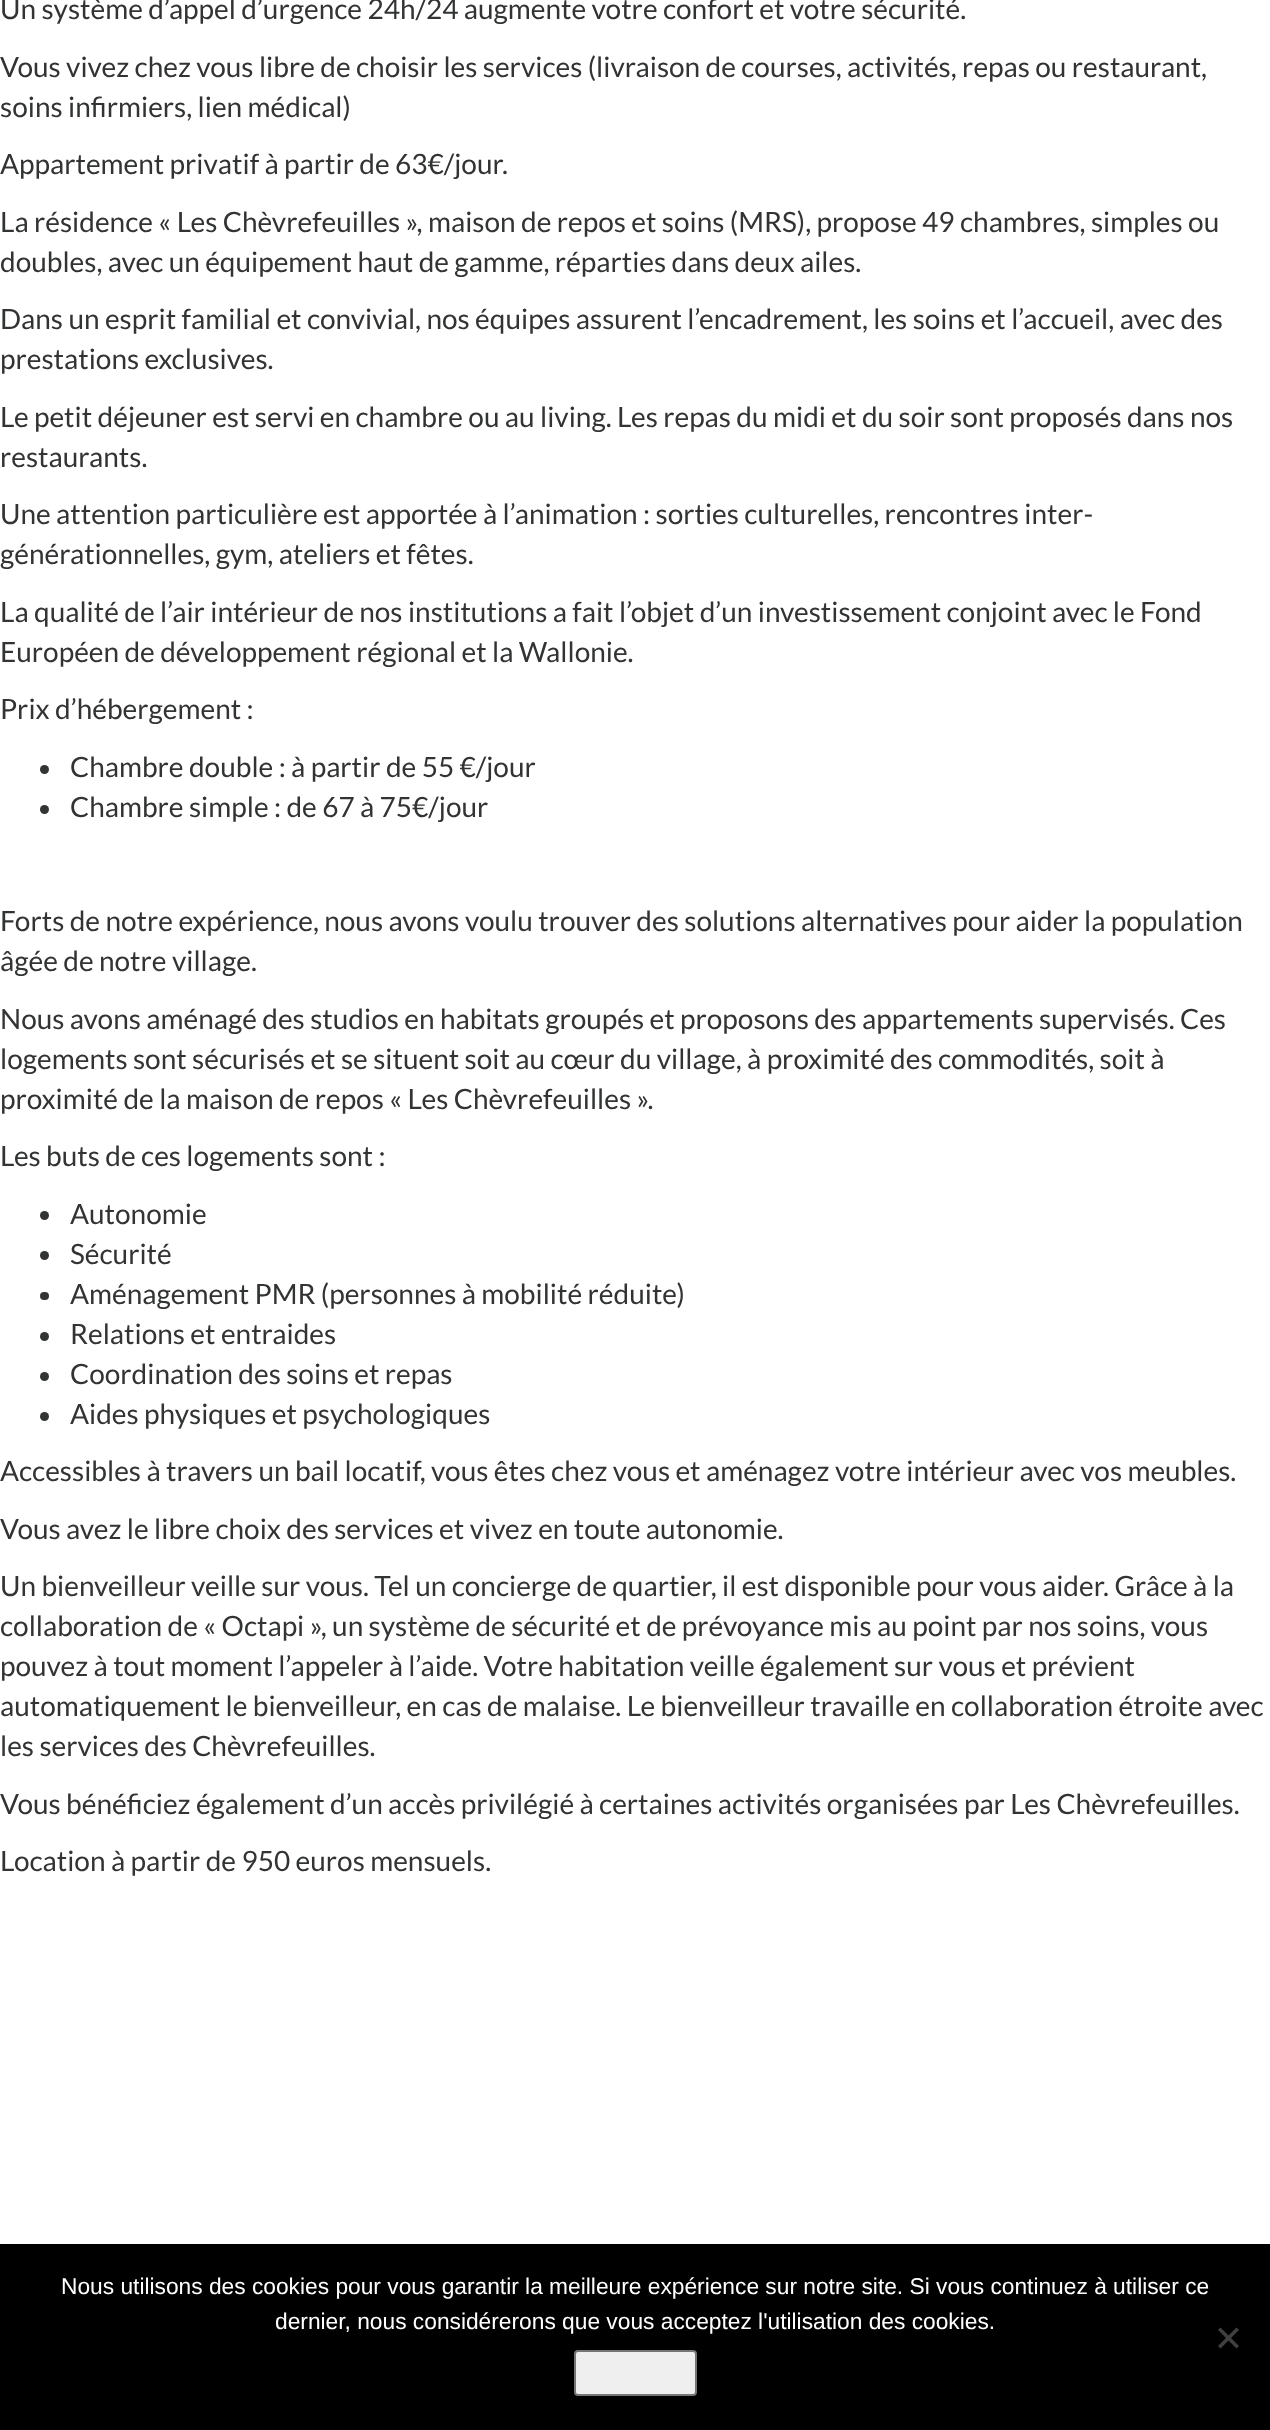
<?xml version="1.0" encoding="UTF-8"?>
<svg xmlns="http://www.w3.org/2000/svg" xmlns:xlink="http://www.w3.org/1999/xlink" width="1270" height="2430">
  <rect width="100%" height="100%" fill="#ffffff" />
  <circle cx="44.5" cy="769.5" r="4.5" fill="#323433" />
  <circle cx="44.5" cy="809.5" r="4.5" fill="#323433" />
  <circle cx="44.5" cy="1215.5" r="4.5" fill="#323433" />
  <circle cx="44.5" cy="1255.5" r="4.5" fill="#323433" />
  <rect x="40" y="1292" width="9" height="8" rx="4" fill="#323433" />
  <circle cx="44.5" cy="1336.5" r="4.5" fill="#323433" />
  <circle cx="44.5" cy="1376.5" r="4.5" fill="#323433" />
  <circle cx="44.5" cy="1416.5" r="4.5" fill="#323433" />
  <rect y="2244" width="1270" height="186" fill="#000000" />
  <path d="M 1236.5 2327.5 l 2.5 2.5 l -18.5 18.5 l -2.5 -2.5 z" fill="#404040" />
  <path d="M 1218 2330 l 2.5 -2.5 l 18.5 18.5 l -2.5 2.5 z" fill="#404040" />
  <rect x="575" y="2351" width="121" height="44" rx="3" fill="#efefef" stroke="#767676" stroke-width="2" />
  <text x="0" y="19" style="font-family: Lato; font-size: 28px; fill: #323433">Un système d’appel d’urgence 24h/24 augmente votre confort et votre sécurité.</text>
  <text x="0" y="77" style="font-family: Lato; font-size: 28px; fill: #323433">Vous vivez chez vous libre de choisir les services (livraison de courses, activités, repas ou restaurant,</text>
  <text x="0" y="117" style="font-family: Lato; font-size: 28px; fill: #323433">soins infirmiers, lien médical)</text>
  <text x="0" y="174" style="font-family: Lato; font-size: 28px; fill: #323433">Appartement privatif à partir de 63€/jour.</text>
  <text x="0" y="232" style="font-family: Lato; font-size: 28px; fill: #323433">La résidence « Les Chèvrefeuilles », maison de repos et soins (MRS), propose 49 chambres, simples ou</text>
  <text x="0" y="272" style="font-family: Lato; font-size: 28px; fill: #323433">doubles, avec un équipement haut de gamme, réparties dans deux ailes.</text>
  <text x="0" y="329" style="font-family: Lato; font-size: 28px; fill: #323433">Dans un esprit familial et convivial, nos équipes assurent l’encadrement, les soins et l’accueil, avec des</text>
  <text x="0" y="369" style="font-family: Lato; font-size: 28px; fill: #323433">prestations exclusives.</text>
  <text x="0" y="427" style="font-family: Lato; font-size: 28px; fill: #323433">Le petit déjeuner est servi en chambre ou au living. Les repas du midi et du soir sont proposés dans nos</text>
  <text x="0" y="467" style="font-family: Lato; font-size: 28px; fill: #323433">restaurants.</text>
  <text x="0" y="524" style="font-family: Lato; font-size: 28px; fill: #323433">Une attention particulière est apportée à l’animation : sorties culturelles, rencontres inter-</text>
  <text x="0" y="564" style="font-family: Lato; font-size: 28px; fill: #323433">générationnelles, gym, ateliers et fêtes.</text>
  <text x="0" y="622" style="font-family: Lato; font-size: 28px; fill: #323433">La qualité de l’air intérieur de nos institutions a fait l’objet d’un investissement conjoint avec le Fond</text>
  <text x="0" y="662" style="font-family: Lato; font-size: 28px; fill: #323433">Européen de développement régional et la Wallonie.</text>
  <text x="0" y="719" style="font-family: Lato; font-size: 28px; fill: #323433">Prix d’hébergement :</text>
  <text x="70" y="777" style="font-family: Lato; font-size: 28px; fill: #323433">Chambre double : à partir de 55 €/jour</text>
  <text x="70" y="817" style="font-family: Lato; font-size: 28px; fill: #323433">Chambre simple : de 67 à 75€/jour</text>
  <text x="0" y="931" style="font-family: Lato; font-size: 28px; fill: #323433">Forts de notre expérience, nous avons voulu trouver des solutions alternatives pour aider la population</text>
  <text x="0" y="971" style="font-family: Lato; font-size: 28px; fill: #323433">âgée de notre village.</text>
  <text x="0" y="1029" style="font-family: Lato; font-size: 28px; fill: #323433">Nous avons aménagé des studios en habitats groupés et proposons des appartements supervisés. Ces</text>
  <text x="0" y="1069" style="font-family: Lato; font-size: 28px; fill: #323433">logements sont sécurisés et se situent soit au cœur du village, à proximité des commodités, soit à</text>
  <text x="0" y="1109" style="font-family: Lato; font-size: 28px; fill: #323433">proximité de la maison de repos « Les Chèvrefeuilles ».</text>
  <text x="0" y="1166" style="font-family: Lato; font-size: 28px; fill: #323433">Les buts de ces logements sont :</text>
  <text x="70" y="1224" style="font-family: Lato; font-size: 28px; fill: #323433">Autonomie</text>
  <text x="70" y="1264" style="font-family: Lato; font-size: 28px; fill: #323433">Sécurité</text>
  <text x="70" y="1304" style="font-family: Lato; font-size: 28px; fill: #323433">Aménagement PMR (personnes à mobilité réduite)</text>
  <text x="70" y="1344" style="font-family: Lato; font-size: 28px; fill: #323433">Relations et entraides</text>
  <text x="70" y="1384" style="font-family: Lato; font-size: 28px; fill: #323433">Coordination des soins et repas</text>
  <text x="70" y="1424" style="font-family: Lato; font-size: 28px; fill: #323433">Aides physiques et psychologiques</text>
  <text x="0" y="1481" style="font-family: Lato; font-size: 28px; fill: #323433">Accessibles à travers un bail locatif, vous êtes chez vous et aménagez votre intérieur avec vos meubles.</text>
  <text x="0" y="1539" style="font-family: Lato; font-size: 28px; fill: #323433">Vous avez le libre choix des services et vivez en toute autonomie.</text>
  <text x="0" y="1596" style="font-family: Lato; font-size: 28px; fill: #323433">Un bienveilleur veille sur vous. Tel un concierge de quartier, il est disponible pour vous aider. Grâce à la</text>
  <text x="0" y="1636" style="font-family: Lato; font-size: 28px; fill: #323433">collaboration de « Octapi », un système de sécurité et de prévoyance mis au point par nos soins, vous</text>
  <text x="0" y="1676" style="font-family: Lato; font-size: 28px; fill: #323433">pouvez à tout moment l’appeler à l’aide. Votre habitation veille également sur vous et prévient</text>
  <text x="0" y="1716" style="font-family: Lato; font-size: 28px; fill: #323433">automatiquement le bienveilleur, en cas de malaise. Le bienveilleur travaille en collaboration étroite avec</text>
  <text x="0" y="1756" style="font-family: Lato; font-size: 28px; fill: #323433">les services des Chèvrefeuilles.</text>
  <text x="0" y="1814" style="font-family: Lato; font-size: 28px; fill: #323433">Vous bénéficiez également d’un accès privilégié à certaines activités organisées par Les Chèvrefeuilles.</text>
  <text x="0" y="1871" style="font-family: Lato; font-size: 28px; fill: #323433">Location à partir de 950 euros mensuels.</text>
  <text x="61" y="2294" style="font-family: Liberation Sans; font-size: 22.75px; fill: #ffffff">Nous utilisons des cookies pour vous garantir la meilleure expérience sur notre site. Si vous continuez à utiliser ce</text>
  <text x="275" y="2329" style="font-family: Liberation Sans; font-size: 22.75px; fill: #ffffff">dernier, nous considérerons que vous acceptez l'utilisation des cookies.</text>
</svg>
